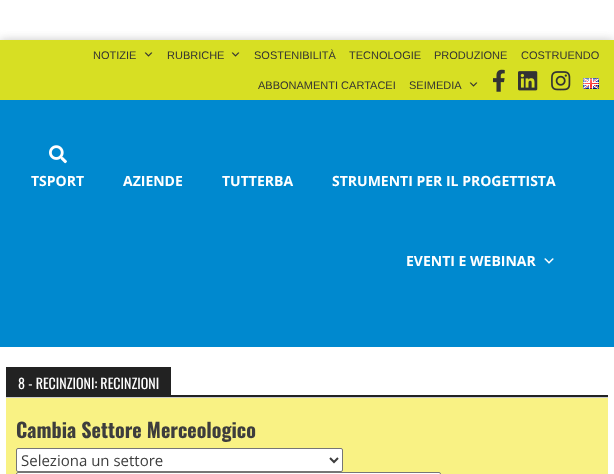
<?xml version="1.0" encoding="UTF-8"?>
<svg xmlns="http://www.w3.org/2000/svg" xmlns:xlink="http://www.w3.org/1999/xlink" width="614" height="474">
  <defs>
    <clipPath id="clip1"><rect x="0" y="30" width="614" height="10" /></clipPath>
  </defs>
  <rect width="100%" height="100%" fill="#ffffff" />
  <g clip-path="url(#clip1)">
    <rect y="40" width="614" height="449" fill="#c7c7c7" filter="blur(5px)" />
  </g>
  <rect y="40" width="614" height="60" fill="#d7df23" />
  <image x="144" y="52" width="9" height="5" xlink:href="image1.png" />
  <image x="231" y="52" width="9" height="5" xlink:href="image1.png" />
  <image x="469" y="82" width="9" height="5" xlink:href="image1.png" />
  <image x="493" y="69" width="12" height="23" xlink:href="image2.png" />
  <image x="518" y="71" width="20" height="20" xlink:href="image3.png" />
  <image x="551" y="71" width="20" height="20" xlink:href="image4.png" />
  <image x="583" y="78" width="16" height="11" xlink:href="image5.png" />
  <rect y="100" width="614" height="247" fill="#0089cf" />
  <image x="49" y="145" width="18" height="19" xlink:href="image6.png" />
  <image x="544" y="258" width="10" height="6" xlink:href="image7.png" />
  <rect x="6" y="395" width="602" height="2" fill="#222222" />
  <rect x="6" y="367" width="165" height="28" fill="#222222" />
  <rect x="6" y="397" width="602" height="1" fill="#cccccc" />
  <rect x="6" y="398" width="602" height="76" fill="#f9f284" />
  <rect x="16.5" y="448.5" width="326" height="23" rx="1.5" fill="#ffffff" stroke="#767676" />
  <path d="M 330 458 l 4 4 l 4 -4" fill="none" stroke="#3d3d3d" stroke-width="2" />
  <rect x="16.5" y="472.5" width="424" height="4" rx="1.5" fill="#ffffff" stroke="#767676" />
  <text x="93" y="59" style="font-family: Liberation Sans; font-size: 11px; fill: #333333">NOTIZIE</text>
  <text x="167" y="59" style="font-family: Liberation Sans; font-size: 11px; fill: #333333">RUBRICHE</text>
  <text x="254" y="59" style="font-family: Liberation Sans; font-size: 11px; fill: #333333">SOSTENIBILITÀ</text>
  <text x="349" y="59" style="font-family: Liberation Sans; font-size: 11px; fill: #333333">TECNOLOGIE</text>
  <text x="434" y="59" style="font-family: Liberation Sans; font-size: 11px; fill: #333333">PRODUZIONE</text>
  <text x="521" y="59" style="font-family: Liberation Sans; font-size: 11px; fill: #333333">COSTRUENDO</text>
  <text x="258" y="89" style="font-family: Liberation Sans; font-size: 11px; fill: #333333">ABBONAMENTI CARTACEI</text>
  <text x="409" y="89" style="font-family: Liberation Sans; font-size: 11px; fill: #333333">SEIMEDIA</text>
  <text x="31" y="186" style="font-family: Open Sans; font-size: 14px; font-weight: bold; fill: #ffffff">TSPORT</text>
  <text x="123" y="186" style="font-family: Open Sans; font-size: 14px; font-weight: bold; fill: #ffffff">AZIENDE</text>
  <text x="222" y="186" style="font-family: Open Sans; font-size: 14px; font-weight: bold; fill: #ffffff">TUTTERBA</text>
  <text x="332" y="186" style="font-family: Open Sans; font-size: 14px; font-weight: bold; fill: #ffffff">STRUMENTI PER IL PROGETTISTA</text>
  <text x="406" y="266" style="font-family: Open Sans; font-size: 14px; font-weight: bold; fill: #ffffff">EVENTI E WEBINAR</text>
  <text x="18" y="389" style="font-family: Oswald; font-size: 14px; fill: #ffffff">8 - RECINZIONI: RECINZIONI</text>
  <text x="16" y="438" style="font-family: Oswald; font-size: 20px; font-weight: bold; fill: #3d3d3d">Cambia Settore Merceologico</text>
  <text x="21" y="466" style="font-family: Open Sans; font-size: 15px; fill: #3d3d3d">Seleziona un settore</text>
</svg>
